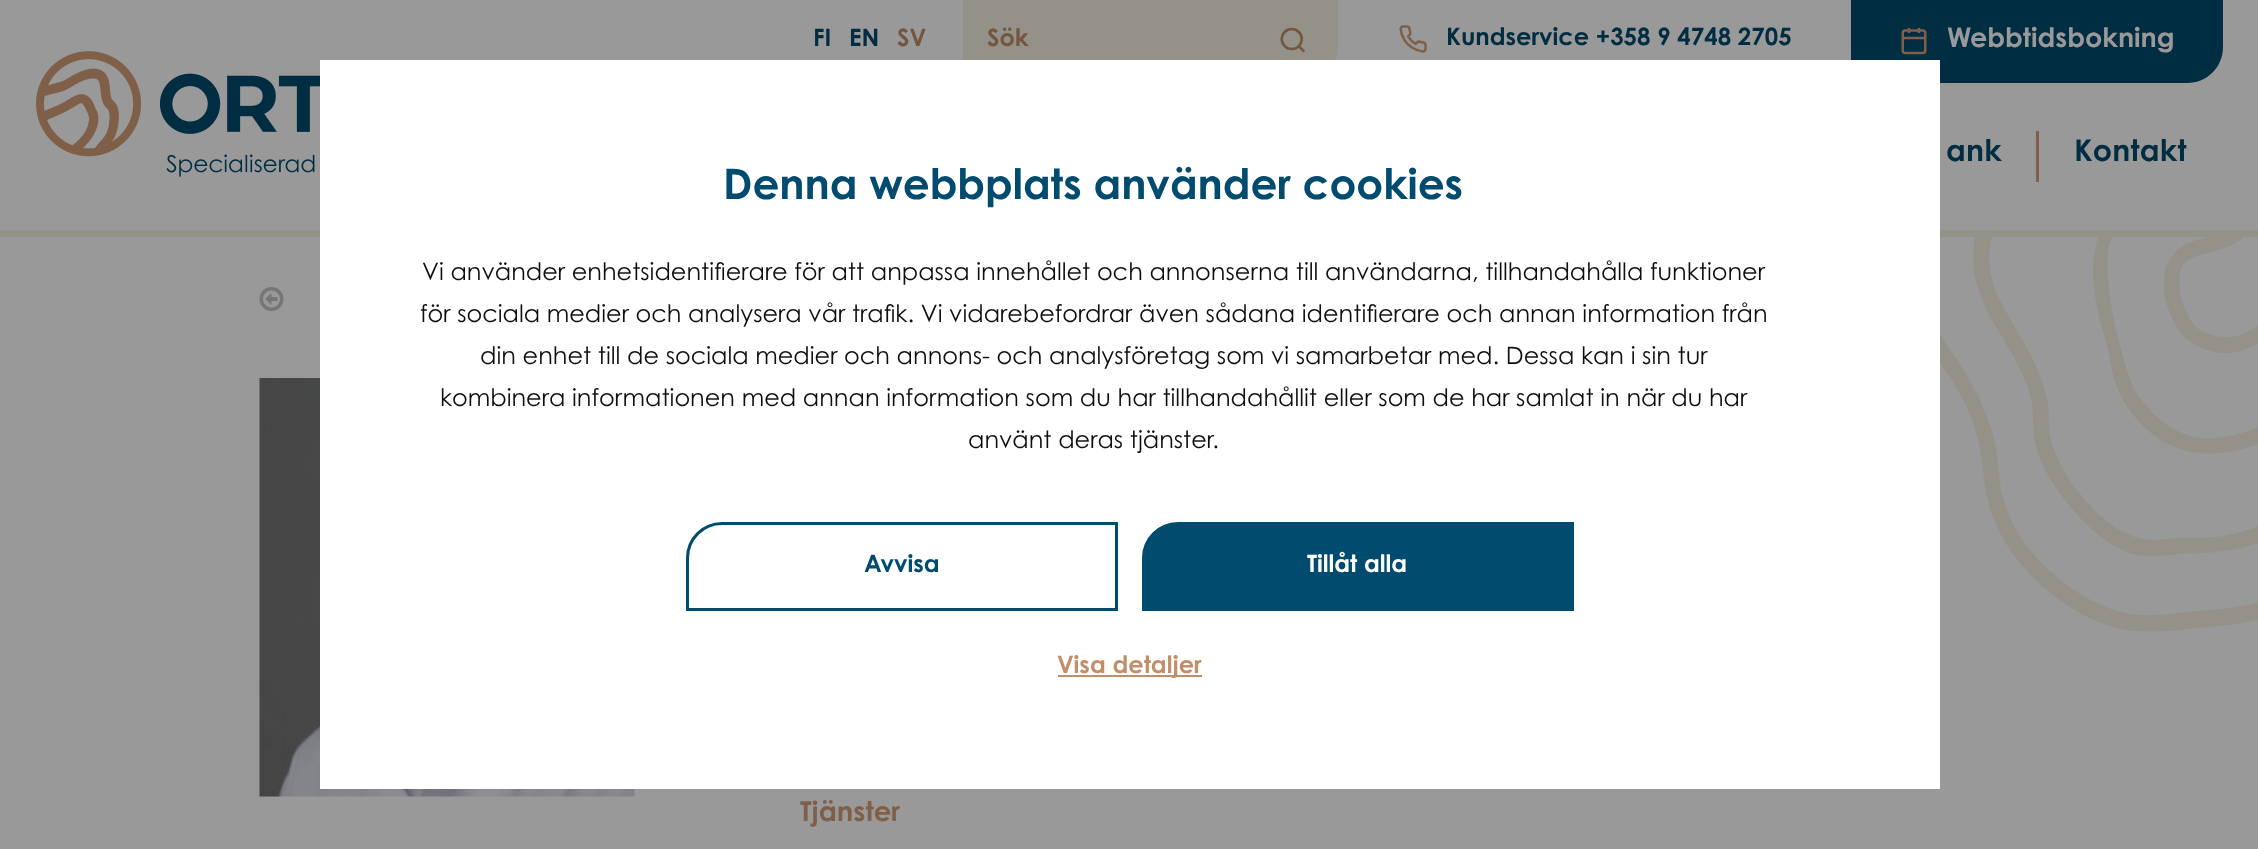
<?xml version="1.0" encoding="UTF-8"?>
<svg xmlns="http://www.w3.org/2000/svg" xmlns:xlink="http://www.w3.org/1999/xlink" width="2258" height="849">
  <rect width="100%" height="100%" fill="#999999" />
  <rect y="230" width="2258" height="7" fill="#949189" />
  <image x="36" y="51" width="284" height="126" xlink:href="image1.png" />
  <path d="M 963 0 h 375 v 47 c 0 20 -16 36 -36 36 h -339 z" fill="#949189" />
  <image x="1280" y="27" width="25" height="26" xlink:href="image2.png" />
  <image x="1399" y="25" width="28" height="28" xlink:href="image3.png" />
  <path d="M 1851 0 h 372 v 47 c 0 20 -16 36 -36 36 h -336 z" fill="#002d42" />
  <image x="1901" y="28" width="26" height="27" xlink:href="image4.png" />
  <rect x="2036" y="131" width="3" height="51" fill="#805f49" />
  <image x="1940" y="237" width="318" height="395" xlink:href="image5.png" />
  <image x="259" y="287" width="25" height="24" xlink:href="image6.png" />
  <image x="259" y="378" width="376" height="419" xlink:href="image7.png" />
  <rect x="320" y="60" width="1620" height="729" fill="#ffffff" />
  <path d="M 722 523.5 h 394.5 v 86 h -429 v -51.5 c 0 -19 15.5 -34.5 34.5 -34.5 z" fill="none" stroke="#004b6e" stroke-width="3" />
  <path d="M 1178 523.5 h 394.5 v 86 h -429 v -51.5 c 0 -19 15.5 -34.5 34.5 -34.5 z" fill="#004b6e" stroke="#004b6e" stroke-width="3" />
  <rect x="1058" y="675" width="144" height="2" fill="#c28d69" />
  <text x="813" y="46" style="font-family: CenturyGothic; font-size: 24px; font-weight: bold; fill: #002d42">FI</text>
  <text x="849" y="46" style="font-family: CenturyGothic; font-size: 24px; font-weight: bold; fill: #002d42">EN</text>
  <text x="897" y="46" style="font-family: CenturyGothic; font-size: 24px; font-weight: bold; fill: #74553f">SV</text>
  <text x="987" y="46" style="font-family: CenturyGothic; font-size: 24px; font-weight: bold; fill: #74553f">Sök</text>
  <text x="1446" y="45" style="font-family: CenturyGothic; font-size: 24px; font-weight: bold; fill: #002d42">Kundservice +358 9 4748 2705</text>
  <text x="1947" y="47" style="font-family: CenturyGothic; font-size: 27px; font-weight: bold; fill: #999999">Webbtidsbokning</text>
  <text x="1946" y="161" style="font-family: CenturyGothic; font-size: 30px; font-weight: bold; letter-spacing: 0.25px; fill: #002d42">ank</text>
  <text x="2074" y="161" style="font-family: CenturyGothic; font-size: 30px; font-weight: bold; letter-spacing: 0.25px; fill: #002d42">Kontakt</text>
  <text x="800" y="821" style="font-family: CenturyGothic; font-size: 27.5px; font-weight: bold; fill: #805f49">Tjänster</text>
  <text x="723" y="199" style="font-family: CenturyGothic; font-size: 42px; font-weight: bold; fill: #004b6e">Denna webbplats använder cookies</text>
  <text x="422" y="280" style="font-family: CenturyGothic; font-size: 24px; font-weight: 500; fill: #0f0f0f">Vi använder enhetsidentifierare för att anpassa innehållet och annonserna till användarna, tillhandahålla funktioner</text>
  <text x="420" y="322" style="font-family: CenturyGothic; font-size: 24px; font-weight: 500; fill: #0f0f0f">för sociala medier och analysera vår trafik. Vi vidarebefordrar även sådana identifierare och annan information från</text>
  <text x="480" y="364" style="font-family: CenturyGothic; font-size: 24px; font-weight: 500; fill: #0f0f0f">din enhet till de sociala medier och annons- och analysföretag som vi samarbetar med. Dessa kan i sin tur</text>
  <text x="440" y="406" style="font-family: CenturyGothic; font-size: 24px; font-weight: 500; fill: #0f0f0f">kombinera informationen med annan information som du har tillhandahållit eller som de har samlat in när du har</text>
  <text x="968" y="448" style="font-family: CenturyGothic; font-size: 24px; font-weight: 500; fill: #0f0f0f">använt deras tjänster.</text>
  <text x="864" y="572" style="font-family: CenturyGothic; font-size: 24px; font-weight: bold; fill: #004b6e">Avvisa</text>
  <text x="1307" y="572" style="font-family: CenturyGothic; font-size: 24px; font-weight: bold; fill: #ffffff">Tillåt alla</text>
  <text x="1057" y="673" style="font-family: CenturyGothic; font-size: 24px; font-weight: bold; fill: #c28d69">Visa detaljer</text>
</svg>
